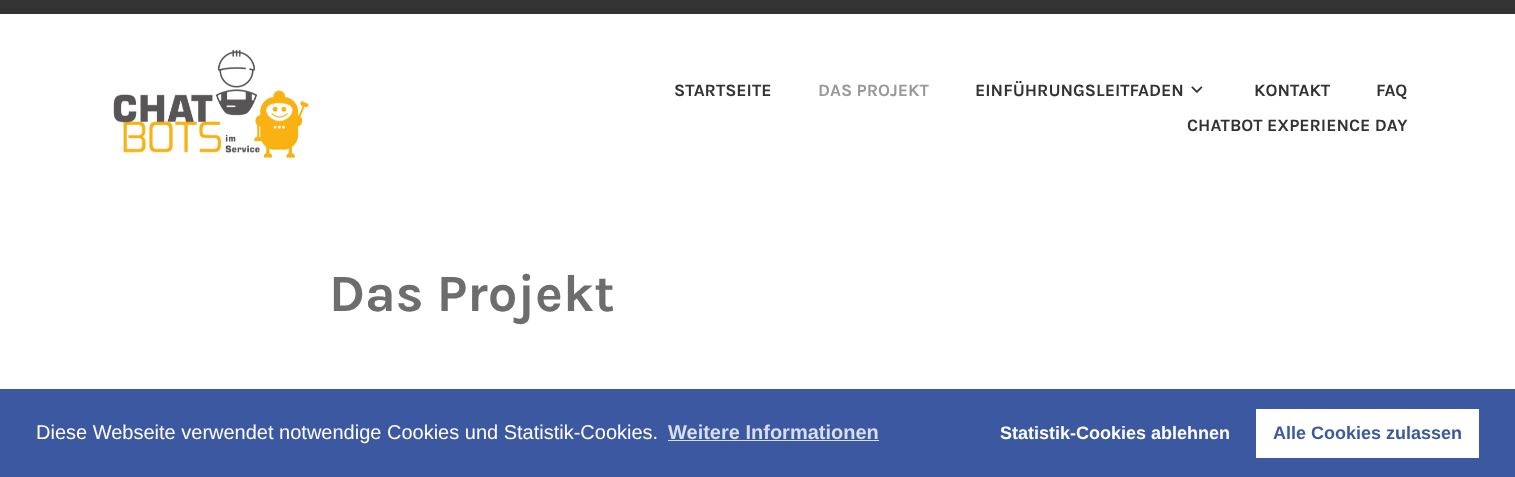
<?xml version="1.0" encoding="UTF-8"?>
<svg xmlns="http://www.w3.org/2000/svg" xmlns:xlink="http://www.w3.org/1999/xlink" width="1515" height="477">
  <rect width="100%" height="100%" fill="#ffffff" />
  <rect width="1515" height="14" fill="#333333" />
  <image x="113" y="49" width="196" height="110" xlink:href="image1.png" />
  <image x="1191" y="86" width="12" height="7" xlink:href="image2.png" />
  <rect y="389" width="1515" height="88" fill="#3c58a1" />
  <rect x="668" y="440" width="211" height="1" fill="#d8deec" />
  <rect x="1256" y="409" width="223" height="49" fill="#ffffff" />
  <text x="674" y="96" style="font-family: Karla; font-size: 17.5px; font-weight: bold; fill: #333333">STARTSEITE</text>
  <text x="818" y="96" style="font-family: Karla; font-size: 17.5px; font-weight: bold; fill: #999999">DAS PROJEKT</text>
  <text x="975" y="96" style="font-family: Karla; font-size: 17.5px; font-weight: bold; fill: #333333">EINFÜHRUNGSLEITFADEN</text>
  <text x="1254" y="96" style="font-family: Karla; font-size: 17.5px; font-weight: bold; fill: #333333">KONTAKT</text>
  <text x="1376" y="96" style="font-family: Karla; font-size: 17.5px; font-weight: bold; fill: #333333">FAQ</text>
  <text x="1187" y="131" style="font-family: Karla; font-size: 17.5px; font-weight: bold; fill: #333333">CHATBOT EXPERIENCE DAY</text>
  <text x="329" y="311" style="font-family: Karla; font-size: 52.5px; font-weight: bold; fill: #6d6d6d">Das Projekt</text>
  <text x="36" y="439" style="font-family: Liberation Sans; font-size: 20px; fill: #ffffff">Diese Webseite verwendet notwendige Cookies und Statistik-Cookies.</text>
  <text x="668" y="439" style="font-family: Liberation Sans; font-size: 20px; font-weight: bold; fill: #d8deec">Weitere Informationen</text>
  <text x="1000" y="439" style="font-family: Liberation Sans; font-size: 18px; font-weight: bold; fill: #ffffff">Statistik-Cookies ablehnen</text>
  <text x="1273" y="439" style="font-family: Liberation Sans; font-size: 18px; font-weight: bold; fill: #3c58a1">Alle Cookies zulassen</text>
</svg>
